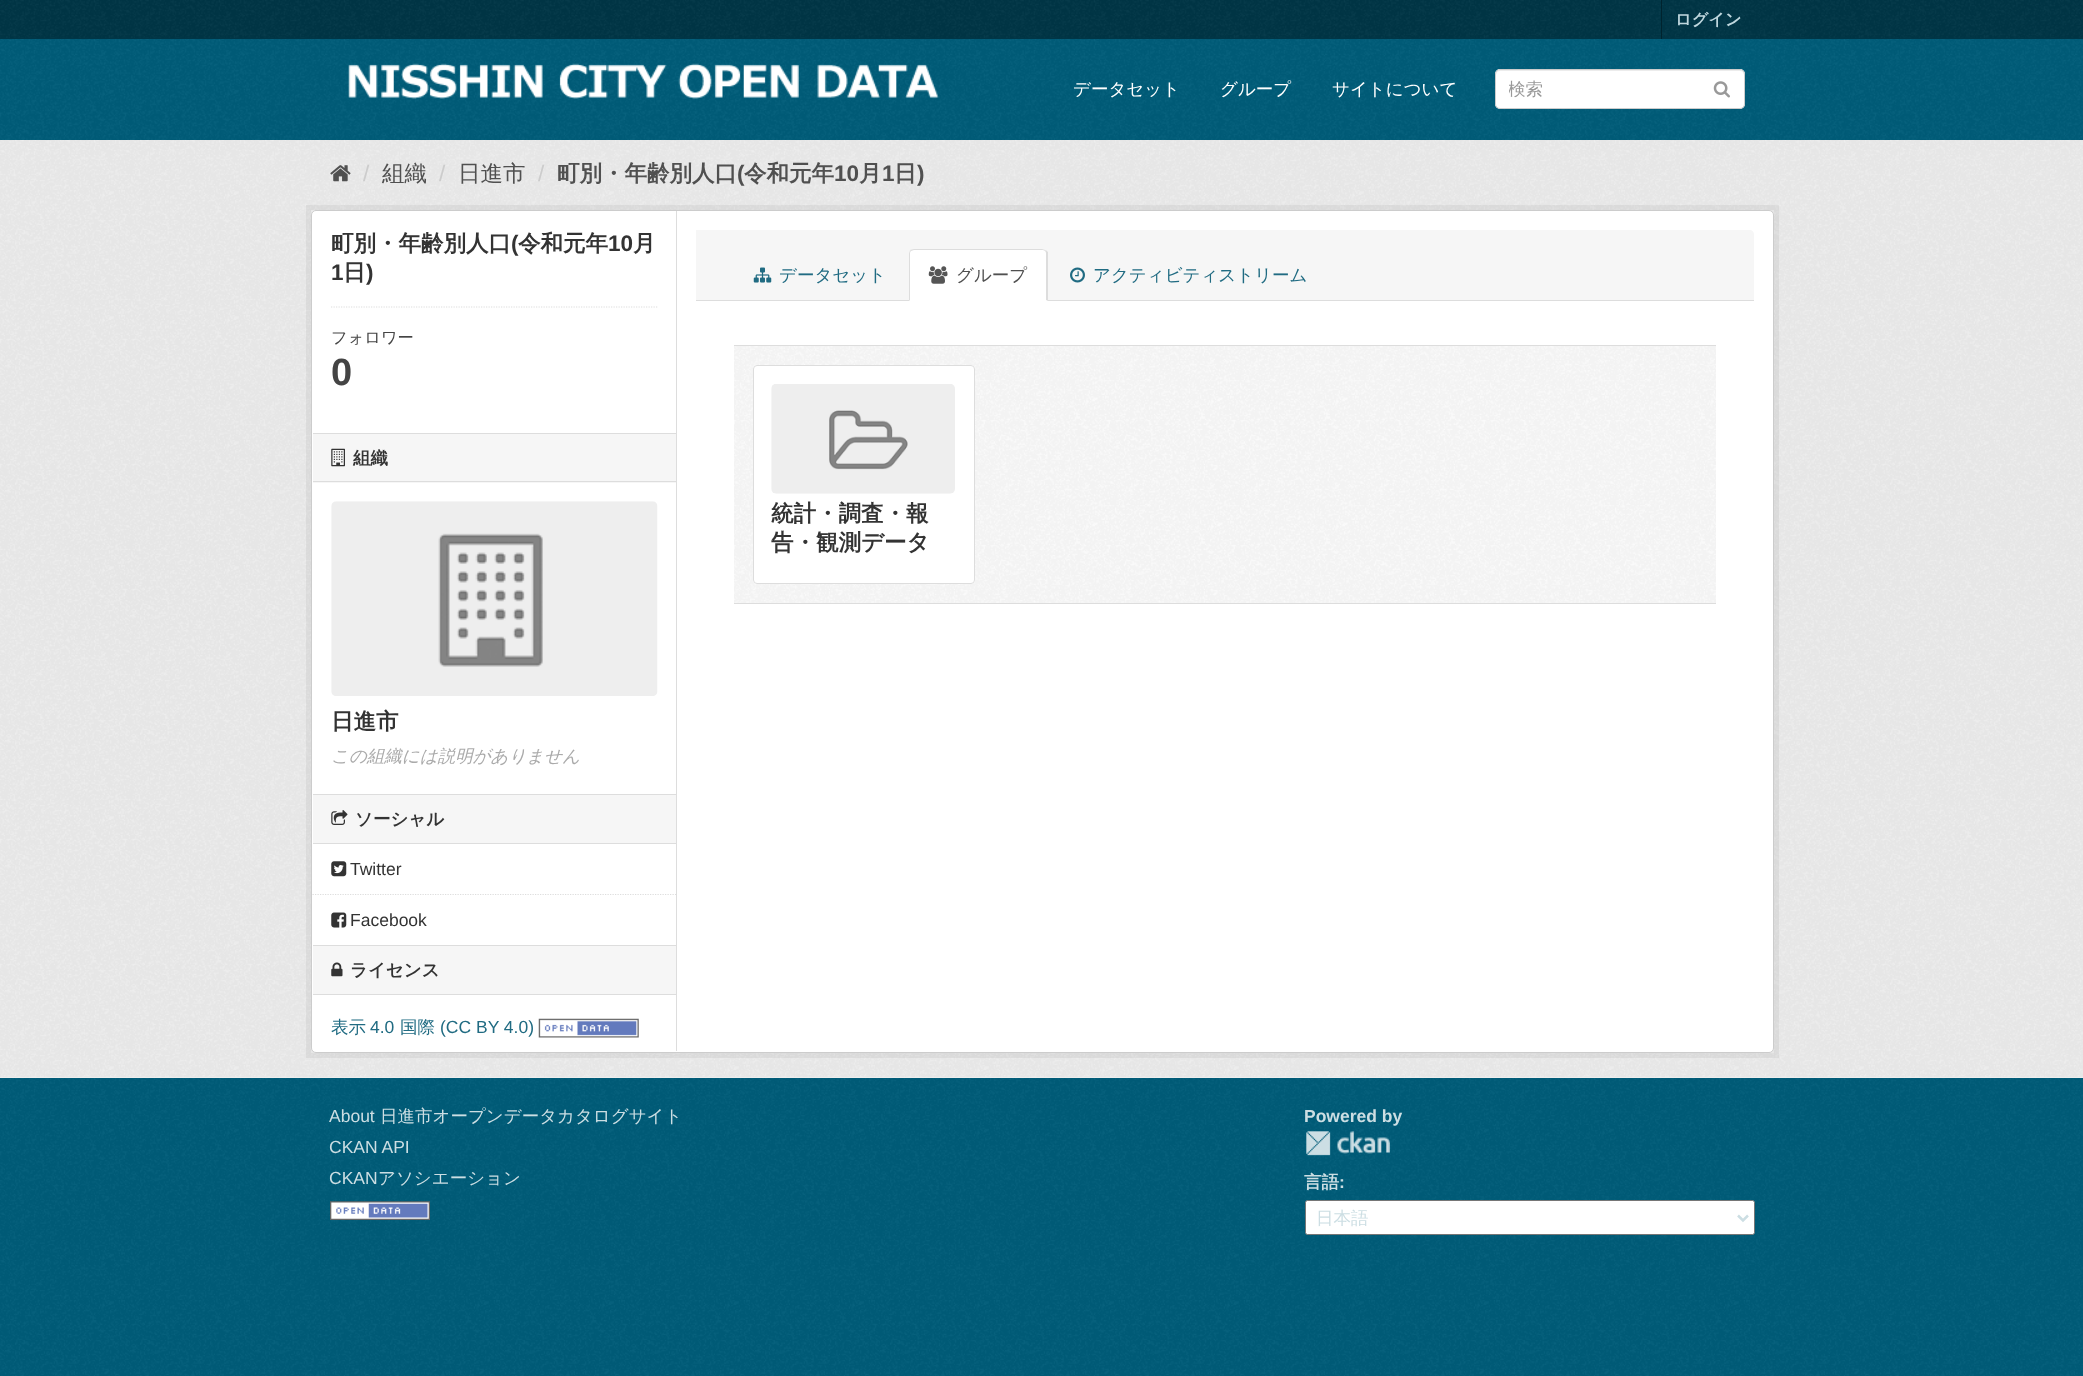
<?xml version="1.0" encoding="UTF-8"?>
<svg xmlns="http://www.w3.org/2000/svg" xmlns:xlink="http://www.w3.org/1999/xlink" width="2083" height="1376">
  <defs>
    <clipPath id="clip1"><rect x="1509" y="79" width="222" height="22" /></clipPath>
  </defs>
  <rect width="100%" height="100%" fill="#005d7a" />
  <image x="0" y="1260" width="2083" height="116" xlink:href="image1.png" />
  <rect width="2083" height="39" fill="#003647" />
  <image x="0" y="0" width="2083" height="38" xlink:href="image2.png" />
  <rect x="1661" width="1" height="39" fill="#00232e" />
  <image x="0" y="39" width="2083" height="101" xlink:href="image3.png" />
  <image x="348" y="63" width="591" height="36" xlink:href="image4.png" />
  <rect x="1495" y="69" width="250" height="40" rx="5" fill="#ffffff" />
  <path d="M 1500 71 h 240 c 2 0 4 2 4 4 v -1 c 0 -2 -2 -4 -4 -4 h -240 c -2 0 -4 2 -4 4 v 1 c 0 -2 2 -4 4 -4 z" fill="#ececec" />
  <rect x="1495.5" y="69.5" width="249" height="39" rx="4.5" fill="none" stroke="#cccccc" />
  <image x="1713" y="81" width="17" height="17" xlink:href="image5.png" />
  <rect y="140" width="2083" height="938" fill="#eeeeee" />
  <image x="0" y="140" width="2083" height="937" xlink:href="image6.png" />
  <image x="330" y="165" width="21" height="17" xlink:href="image7.png" />
  <rect x="308.5" y="207.5" width="1468" height="848" fill="none" stroke="#000000" stroke-opacity="0.05" stroke-width="5" />
  <rect x="311.5" y="210.5" width="1462" height="842" rx="4.5" fill="#ffffff" stroke="#cccccc" />
  <path d="M 331 307 h 326.5" fill="none" stroke="#dddddd" stroke-width="1.2" stroke-dasharray="1.25 1.25" />
  <rect x="313" y="434" width="363" height="49" fill="#f6f6f6" />
  <rect x="313" y="433" width="363" height="1" fill="#dddddd" />
  <rect x="313" y="481" width="363" height="1" fill="#dddddd" />
  <image x="331" y="448" width="14" height="19" xlink:href="image8.png" />
  <image x="331" y="501" width="327" height="195" xlink:href="image9.png" />
  <rect x="313" y="795" width="363" height="48" fill="#f6f6f6" />
  <rect x="313" y="794" width="363" height="1" fill="#dddddd" />
  <rect x="313" y="843" width="363" height="1" fill="#dddddd" />
  <image x="331" y="810" width="17" height="15" xlink:href="image10.png" />
  <path d="M 312.5 894.5 h 363.5" fill="none" stroke="#dddddd" stroke-width="1.2" stroke-dasharray="1.25 1.25" />
  <image x="331" y="861" width="16" height="16" xlink:href="image11.png" />
  <image x="331" y="912" width="16" height="16" xlink:href="image12.png" />
  <rect x="313" y="946" width="363" height="48" fill="#f6f6f6" />
  <rect x="313" y="945" width="363" height="1" fill="#dddddd" />
  <rect x="313" y="994" width="363" height="1" fill="#dddddd" />
  <image x="331" y="962" width="12" height="15" xlink:href="image13.png" />
  <image x="538" y="1018" width="101" height="20" xlink:href="image14.png" />
  <rect x="676" y="211" width="1" height="840" fill="#dddddd" />
  <path d="M 696 230 h 1054 c 2 0 4 2 4 4 v 67 h -1058 z" fill="#f6f6f6" />
  <rect x="696" y="300" width="1058" height="1" fill="#dddddd" />
  <image x="753" y="267" width="19" height="16" xlink:href="image15.png" />
  <path d="M 914 249 h 129 c 3 0 5 2 5 5 v 47 h -139 v -47 c 0 -3 2 -5 5 -5 z" fill="#ffffff" />
  <path d="M 914 249 c -2 0 -3 1 -4 1 l 1 1 l 3 -1 h 128 c 1 0 2 0 3 1 l 1 -1 l -4 -1 z" fill="#dddddd" />
  <path d="M 1046 250 l 2 2 v 49 l -2 -1 v -46 c 0 -1 0 -2 -1 -3 z" fill="#dddddd" />
  <path d="M 910 250 c 0 1 -1 2 -1 4 v 47 l 1 -1 v -46 c 0 -1 0 -2 1 -3 z" fill="#dddddd" />
  <image x="928" y="266" width="20" height="18" xlink:href="image16.png" />
  <image x="1070" y="267" width="15" height="16" xlink:href="image17.png" />
  <rect x="734" y="346" width="982" height="257" fill="#fbfbfb" />
  <image x="734" y="346" width="982" height="257" xlink:href="image18.png" />
  <rect x="734" y="345" width="982" height="1" fill="#dddddd" />
  <rect x="734" y="603" width="982" height="1" fill="#dddddd" />
  <rect x="753" y="365" width="222" height="219" rx="4" fill="#ffffff" />
  <image x="771" y="384" width="184" height="110" xlink:href="image19.png" />
  <rect x="753.5" y="365.5" width="221" height="218" rx="3.5" fill="none" stroke="#dddddd" />
  <image x="0" y="1078" width="2083" height="182" xlink:href="image20.png" />
  <image x="330" y="1201" width="100" height="19" xlink:href="image21.png" />
  <image x="1306" y="1131" width="84" height="25" xlink:href="image22.png" />
  <rect x="1305.5" y="1200.5" width="449" height="34" rx="2" fill="#ffffff" stroke="#767676" />
  <path d="M 1738 1215.5 l 5 5 l 5 -5" fill="none" stroke="#ccdee3" stroke-width="2.5" />
  <text x="1675" y="25" style="font-family: WenQuanYi Zen Hei; font-size: 16.25px; font-weight: bold; fill: #bfd7de">ログイン</text>
  <text x="1073" y="95" style="font-family: WenQuanYi Zen Hei; font-size: 17.5px; font-weight: 500; fill: #ffffff">データセット</text>
  <text x="1220" y="95" style="font-family: WenQuanYi Zen Hei; font-size: 17.5px; font-weight: 500; fill: #ffffff">グループ</text>
  <text x="1332" y="95" style="font-family: WenQuanYi Zen Hei; font-size: 17.5px; font-weight: 500; fill: #ffffff">サイトについて</text>
  <g clip-path="url(#clip1)">
    <text x="1508" y="95" style="font-family: WenQuanYi Zen Hei; font-size: 17.5px; font-weight: 500; fill: #999999">検索</text>
  </g>
  <text x="363" y="181" style="font-family: Liberation Sans; font-size: 22.5px; fill: #cccccc">/</text>
  <text x="382" y="181" style="font-family: WenQuanYi Zen Hei; font-size: 22.5px; font-weight: 500; fill: #505050">組織</text>
  <text x="439" y="181" style="font-family: Liberation Sans; font-size: 22.5px; fill: #cccccc">/</text>
  <text x="458" y="181" style="font-family: WenQuanYi Zen Hei; font-size: 22.5px; font-weight: 500; fill: #505050">日進市</text>
  <text x="538" y="181" style="font-family: Liberation Sans; font-size: 22.5px; fill: #cccccc">/</text>
  <text x="557" y="181" style="font-family: WenQuanYi Zen Hei; font-size: 22.5px; font-weight: bold; fill: #505050">町別・年齢別人口</text>
  <text x="737" y="181" style="font-family: Liberation Sans; font-size: 22.5px; font-weight: bold; fill: #505050">(</text>
  <text x="744" y="181" style="font-family: WenQuanYi Zen Hei; font-size: 22.5px; font-weight: bold; fill: #505050">令和元年</text>
  <text x="834" y="181" style="font-family: Liberation Sans; font-size: 22.5px; font-weight: bold; fill: #505050">10</text>
  <text x="859" y="181" style="font-family: WenQuanYi Zen Hei; font-size: 22.5px; font-weight: bold; fill: #505050">月</text>
  <text x="882" y="181" style="font-family: Liberation Sans; font-size: 22.5px; font-weight: bold; fill: #505050">1</text>
  <text x="894" y="181" style="font-family: WenQuanYi Zen Hei; font-size: 22.5px; font-weight: bold; fill: #505050">日</text>
  <text x="917" y="181" style="font-family: Liberation Sans; font-size: 22.5px; font-weight: bold; fill: #505050">)</text>
  <text x="331" y="251" style="font-family: WenQuanYi Zen Hei; font-size: 22.5px; font-weight: bold; fill: #333333">町別・年齢別人口</text>
  <text x="511" y="251" style="font-family: Liberation Sans; font-size: 22.5px; font-weight: bold; fill: #333333">(</text>
  <text x="518" y="251" style="font-family: WenQuanYi Zen Hei; font-size: 22.5px; font-weight: bold; fill: #333333">令和元年</text>
  <text x="608" y="251" style="font-family: Liberation Sans; font-size: 22.5px; font-weight: bold; fill: #333333">10</text>
  <text x="633" y="251" style="font-family: WenQuanYi Zen Hei; font-size: 22.5px; font-weight: bold; fill: #333333">月</text>
  <text x="331" y="280" style="font-family: Liberation Sans; font-size: 22.5px; font-weight: bold; fill: #333333">1</text>
  <text x="343" y="280" style="font-family: WenQuanYi Zen Hei; font-size: 22.5px; font-weight: bold; fill: #333333">日</text>
  <text x="366" y="280" style="font-family: Liberation Sans; font-size: 22.5px; font-weight: bold; fill: #333333">)</text>
  <text x="331" y="343" style="font-family: WenQuanYi Zen Hei; font-size: 16.25px; font-weight: 500; fill: #444444">フォロワー</text>
  <text x="331" y="385" style="font-family: Liberation Sans; font-size: 38px; font-weight: bold; fill: #444444">0</text>
  <text x="353" y="464" style="font-family: WenQuanYi Zen Hei; font-size: 17.5px; font-weight: bold; fill: #333333">組織</text>
  <text x="331" y="729" style="font-family: WenQuanYi Zen Hei; font-size: 22.5px; font-weight: bold; fill: #333333">日進市</text>
  <text x="331" y="762" style="font-family: WenQuanYi Zen Hei; font-size: 17.5px; font-weight: 500; font-style: italic; fill: #aaaaaa">この組織には説明がありません</text>
  <text x="355" y="825" style="font-family: WenQuanYi Zen Hei; font-size: 17.5px; font-weight: bold; fill: #333333">ソーシャル</text>
  <text x="350" y="875" style="font-family: Liberation Sans; font-size: 17.5px; fill: #333333">Twitter</text>
  <text x="350" y="926" style="font-family: Liberation Sans; font-size: 17.5px; fill: #333333">Facebook</text>
  <text x="350" y="976" style="font-family: WenQuanYi Zen Hei; font-size: 17.5px; font-weight: bold; fill: #333333">ライセンス</text>
  <text x="331" y="1033" style="font-family: WenQuanYi Zen Hei; font-size: 17.5px; font-weight: 500; fill: #206b82">表示</text>
  <text x="370" y="1033" style="font-family: Liberation Sans; font-size: 17.5px; fill: #206b82">4.0</text>
  <text x="400" y="1033" style="font-family: WenQuanYi Zen Hei; font-size: 17.5px; font-weight: 500; fill: #206b82">国際</text>
  <text x="440" y="1033" style="font-family: Liberation Sans; font-size: 17.5px; fill: #206b82">(CC BY 4.0)</text>
  <text x="779" y="281" style="font-family: WenQuanYi Zen Hei; font-size: 17.5px; font-weight: 500; fill: #206b82">データセット</text>
  <text x="956" y="281" style="font-family: WenQuanYi Zen Hei; font-size: 17.5px; font-weight: 500; fill: #505050">グループ</text>
  <text x="1093" y="281" style="font-family: WenQuanYi Zen Hei; font-size: 17.5px; font-weight: 500; fill: #206b82">アクティビティストリーム</text>
  <text x="771" y="521" style="font-family: WenQuanYi Zen Hei; font-size: 22.5px; font-weight: bold; fill: #333333">統計・調査・報</text>
  <text x="771" y="550" style="font-family: WenQuanYi Zen Hei; font-size: 22.5px; font-weight: bold; fill: #333333">告・観測データ</text>
  <text x="329" y="1122" style="font-family: Liberation Sans; font-size: 17.5px; fill: #ccdee3">About</text>
  <text x="380" y="1122" style="font-family: WenQuanYi Zen Hei; font-size: 17.5px; font-weight: 500; fill: #ccdee3">日進市オープンデータカタログサイト</text>
  <text x="329" y="1153" style="font-family: Liberation Sans; font-size: 17.5px; fill: #ccdee3">CKAN API</text>
  <text x="329" y="1184" style="font-family: Liberation Sans; font-size: 17.5px; fill: #ccdee3">CKAN</text>
  <text x="378" y="1184" style="font-family: WenQuanYi Zen Hei; font-size: 17.5px; font-weight: 500; fill: #ccdee3">アソシエーション</text>
  <text x="1304" y="1122" style="font-family: Liberation Sans; font-size: 17.5px; font-weight: bold; fill: #ccdee3">Powered by</text>
  <text x="1304" y="1188" style="font-family: WenQuanYi Zen Hei; font-size: 17.5px; font-weight: bold; fill: #ccdee3">言語</text>
  <text x="1339" y="1188" style="font-family: Liberation Sans; font-size: 17.5px; font-weight: bold; fill: #ccdee3">:</text>
  <text x="1316" y="1224" style="font-family: WenQuanYi Zen Hei; font-size: 17.5px; font-weight: 500; fill: #ccdee3">日本語</text>
</svg>
